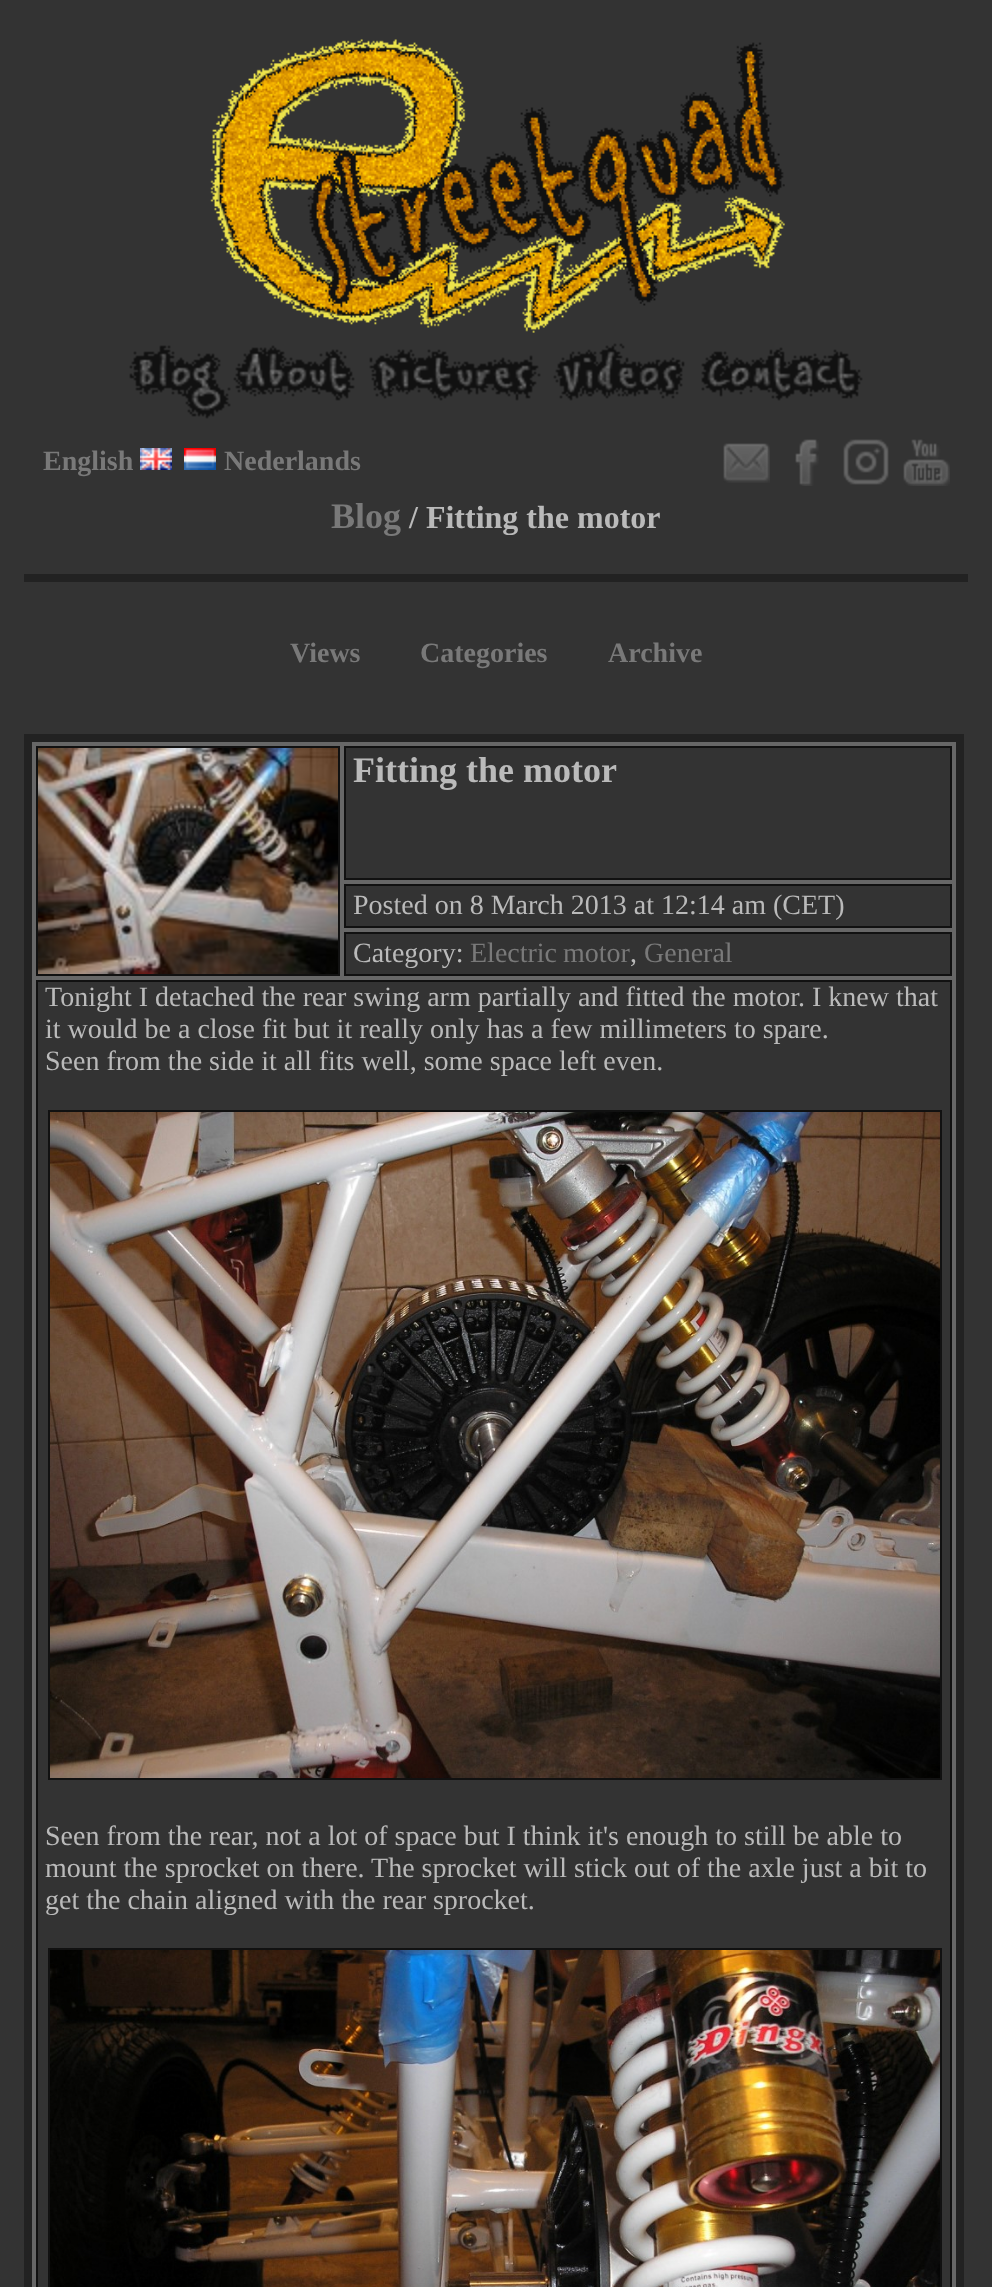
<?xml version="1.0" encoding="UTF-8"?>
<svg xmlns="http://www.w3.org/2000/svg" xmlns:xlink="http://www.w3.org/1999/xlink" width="992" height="2287">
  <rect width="100%" height="100%" fill="#333333" />
  <image x="210" y="39" width="575" height="294" xlink:href="image1.png" />
  <image x="129" y="345" width="102" height="74" xlink:href="image2.png" />
  <image x="233" y="345" width="122" height="56" xlink:href="image3.png" />
  <image x="369" y="349" width="172" height="52" xlink:href="image4.png" />
  <image x="553" y="343" width="132" height="58" xlink:href="image5.png" />
  <image x="701" y="347" width="162" height="54" xlink:href="image6.png" />
  <image x="140" y="448" width="32" height="22" xlink:href="image7.png" />
  <image x="184" y="448" width="32" height="22" xlink:href="image8.png" />
  <image x="723" y="443" width="47" height="40" xlink:href="image9.png" />
  <image x="795" y="439" width="24" height="47" xlink:href="image10.png" />
  <image x="843" y="439" width="46" height="46" xlink:href="image11.png" />
  <image x="903" y="439" width="47" height="47" xlink:href="image12.png" />
  <rect x="24" y="574" width="944" height="8" fill="#222222" />
  <rect x="28" y="738" width="932" height="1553" fill="#676767" stroke="#222222" stroke-width="8" />
  <rect x="37" y="747" width="302" height="228" fill="none" stroke="#111111" stroke-width="2" />
  <image x="38" y="748" width="300" height="226" xlink:href="image13.png" />
  <rect x="345" y="747" width="606" height="132" fill="#333333" stroke="#111111" stroke-width="2" />
  <rect x="345" y="885" width="606" height="42" fill="#333333" stroke="#111111" stroke-width="2" />
  <rect x="345" y="933" width="606" height="42" fill="#333333" stroke="#111111" stroke-width="2" />
  <rect x="37" y="981" width="914" height="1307" fill="#333333" stroke="#111111" stroke-width="2" />
  <rect x="49" y="1111" width="892" height="668" fill="none" stroke="#111111" stroke-width="2" />
  <image x="50" y="1112" width="890" height="666" xlink:href="image14.png" />
  <rect x="49" y="1949" width="892" height="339" fill="none" stroke="#111111" stroke-width="2" />
  <image x="50" y="1950" width="890" height="337" xlink:href="image15.png" />
  <text x="43" y="470" style="font-family: Liberation Serif; font-size: 28px; font-weight: bold; fill: #797979">English</text>
  <text x="224" y="470" style="font-family: Liberation Serif; font-size: 28px; font-weight: bold; fill: #797979">Nederlands</text>
  <text x="331" y="528" style="font-family: Liberation Serif; font-size: 36px; font-weight: bold; fill: #797979">Blog</text>
  <text x="409" y="528" style="font-family: Liberation Serif; font-size: 32px; font-weight: bold; fill: #bababa">/ Fitting the motor</text>
  <text x="290" y="662" style="font-family: Liberation Serif; font-size: 28px; font-weight: bold; fill: #797979">Views</text>
  <text x="420" y="662" style="font-family: Liberation Serif; font-size: 28px; font-weight: bold; fill: #797979">Categories</text>
  <text x="608" y="662" style="font-family: Liberation Serif; font-size: 28px; font-weight: bold; fill: #797979">Archive</text>
  <text x="353" y="782" style="font-family: Liberation Serif; font-size: 36px; font-weight: bold; fill: #bababa">Fitting the motor</text>
  <text x="353" y="914" style="font-family: Liberation Serif; font-size: 28px; fill: #bababa">Posted on 8 March 2013 at 12:14 am (CET)</text>
  <text x="353" y="962" style="font-family: Liberation Serif; font-size: 28px; fill: #bababa">Category:</text>
  <text x="470" y="962" word-spacing="-1" style="font-family: Liberation Serif; font-size: 28px; fill: #797979">Electric motor</text>
  <text x="630" y="962" style="font-family: Liberation Serif; font-size: 28px; fill: #bababa">,</text>
  <text x="644" y="962" style="font-family: Liberation Serif; font-size: 28px; fill: #797979">General</text>
  <text x="45" y="1006" style="font-family: Liberation Serif; font-size: 28px; fill: #bababa">Tonight I detached the rear swing arm partially and fitted the motor. I knew that</text>
  <text x="45" y="1038" style="font-family: Liberation Serif; font-size: 28px; fill: #bababa">it would be a close fit but it really only has a few millimeters to spare.</text>
  <text x="45" y="1070" style="font-family: Liberation Serif; font-size: 28px; fill: #bababa">Seen from the side it all fits well, some space left even.</text>
  <text x="45" y="1845" style="font-family: Liberation Serif; font-size: 28px; fill: #bababa">Seen from the rear, not a lot of space but I think it's enough to still be able to</text>
  <text x="45" y="1877" style="font-family: Liberation Serif; font-size: 28px; fill: #bababa">mount the sprocket on there. The sprocket will stick out of the axle just a bit to</text>
  <text x="45" y="1909" style="font-family: Liberation Serif; font-size: 28px; fill: #bababa">get the chain aligned with the rear sprocket.</text>
</svg>
